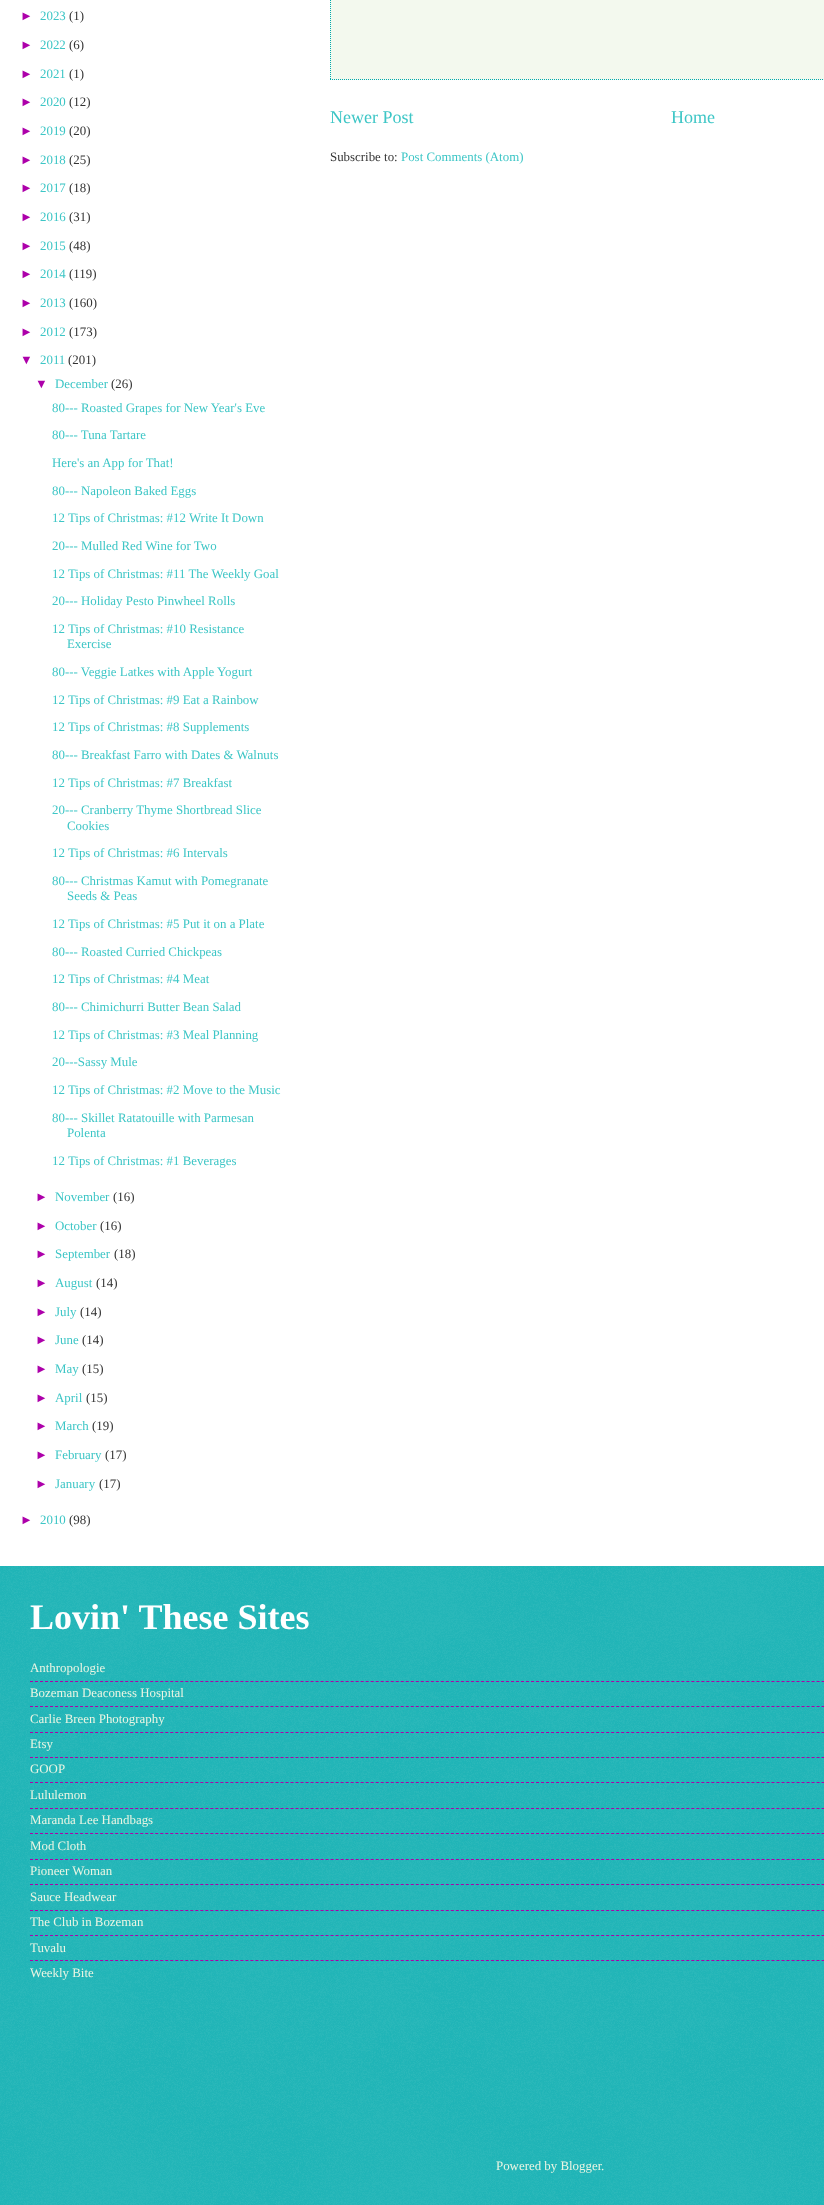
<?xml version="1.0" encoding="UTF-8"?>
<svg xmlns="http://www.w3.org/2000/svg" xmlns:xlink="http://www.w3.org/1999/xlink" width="824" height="2205">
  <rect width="100%" height="100%" fill="#ffffff" />
  <rect x="330" width="494" height="80" fill="#f3f9ee" />
  <path d="M 330 79.5 h 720" fill="none" stroke="#00aaad" stroke-dasharray="1 1" />
  <path d="M 330.5 -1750 v 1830" fill="none" stroke="#00aaad" stroke-dasharray="1 1" />
  <rect y="1566" width="824" height="639" fill="#00aaad" />
  <image x="0" y="1566" width="824" height="639" xlink:href="image1.png" />
  <path d="M 30 1681.5 h 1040" fill="none" stroke="#ad00aa" stroke-dasharray="3 2.01" />
  <path d="M 30 1706.5 h 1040" fill="none" stroke="#ad00aa" stroke-dasharray="3 2.01" />
  <path d="M 30 1732.5 h 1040" fill="none" stroke="#ad00aa" stroke-dasharray="3 2.01" />
  <path d="M 30 1757.5 h 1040" fill="none" stroke="#ad00aa" stroke-dasharray="3 2.01" />
  <path d="M 30 1782.5 h 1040" fill="none" stroke="#ad00aa" stroke-dasharray="3 2.01" />
  <path d="M 30 1808.5 h 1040" fill="none" stroke="#ad00aa" stroke-dasharray="3 2.01" />
  <path d="M 30 1833.5 h 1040" fill="none" stroke="#ad00aa" stroke-dasharray="3 2.01" />
  <path d="M 30 1859.5 h 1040" fill="none" stroke="#ad00aa" stroke-dasharray="3 2.01" />
  <path d="M 30 1884.5 h 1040" fill="none" stroke="#ad00aa" stroke-dasharray="3 2.01" />
  <path d="M 30 1910.5 h 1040" fill="none" stroke="#ad00aa" stroke-dasharray="3 2.01" />
  <path d="M 30 1935.5 h 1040" fill="none" stroke="#ad00aa" stroke-dasharray="3 2.01" />
  <path d="M 30 1960.5 h 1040" fill="none" stroke="#ad00aa" stroke-dasharray="3 2.01" />
  <text x="20" y="20" style="font-family: Liberation Sans; font-size: 12.9px; fill: #ad00aa">►</text>
  <text x="40" y="20" style="font-family: Liberation Serif; font-size: 12.9px; fill: #3dc6c6">2023</text>
  <text x="69" y="20" style="font-family: Liberation Serif; font-size: 12.9px; fill: #333333">(1)</text>
  <text x="20" y="49" style="font-family: Liberation Sans; font-size: 12.9px; fill: #ad00aa">►</text>
  <text x="40" y="49" style="font-family: Liberation Serif; font-size: 12.9px; fill: #3dc6c6">2022</text>
  <text x="69" y="49" style="font-family: Liberation Serif; font-size: 12.9px; fill: #333333">(6)</text>
  <text x="20" y="78" style="font-family: Liberation Sans; font-size: 12.9px; fill: #ad00aa">►</text>
  <text x="40" y="78" style="font-family: Liberation Serif; font-size: 12.9px; fill: #3dc6c6">2021</text>
  <text x="69" y="78" style="font-family: Liberation Serif; font-size: 12.9px; fill: #333333">(1)</text>
  <text x="20" y="106" style="font-family: Liberation Sans; font-size: 12.9px; fill: #ad00aa">►</text>
  <text x="40" y="106" style="font-family: Liberation Serif; font-size: 12.9px; fill: #3dc6c6">2020</text>
  <text x="69" y="106" style="font-family: Liberation Serif; font-size: 12.9px; fill: #333333">(12)</text>
  <text x="20" y="135" style="font-family: Liberation Sans; font-size: 12.9px; fill: #ad00aa">►</text>
  <text x="40" y="135" style="font-family: Liberation Serif; font-size: 12.9px; fill: #3dc6c6">2019</text>
  <text x="69" y="135" style="font-family: Liberation Serif; font-size: 12.9px; fill: #333333">(20)</text>
  <text x="20" y="164" style="font-family: Liberation Sans; font-size: 12.9px; fill: #ad00aa">►</text>
  <text x="40" y="164" style="font-family: Liberation Serif; font-size: 12.9px; fill: #3dc6c6">2018</text>
  <text x="69" y="164" style="font-family: Liberation Serif; font-size: 12.9px; fill: #333333">(25)</text>
  <text x="20" y="192" style="font-family: Liberation Sans; font-size: 12.9px; fill: #ad00aa">►</text>
  <text x="40" y="192" style="font-family: Liberation Serif; font-size: 12.9px; fill: #3dc6c6">2017</text>
  <text x="69" y="192" style="font-family: Liberation Serif; font-size: 12.9px; fill: #333333">(18)</text>
  <text x="20" y="221" style="font-family: Liberation Sans; font-size: 12.9px; fill: #ad00aa">►</text>
  <text x="40" y="221" style="font-family: Liberation Serif; font-size: 12.9px; fill: #3dc6c6">2016</text>
  <text x="69" y="221" style="font-family: Liberation Serif; font-size: 12.9px; fill: #333333">(31)</text>
  <text x="20" y="250" style="font-family: Liberation Sans; font-size: 12.9px; fill: #ad00aa">►</text>
  <text x="40" y="250" style="font-family: Liberation Serif; font-size: 12.9px; fill: #3dc6c6">2015</text>
  <text x="69" y="250" style="font-family: Liberation Serif; font-size: 12.9px; fill: #333333">(48)</text>
  <text x="20" y="278" style="font-family: Liberation Sans; font-size: 12.9px; fill: #ad00aa">►</text>
  <text x="40" y="278" style="font-family: Liberation Serif; font-size: 12.9px; fill: #3dc6c6">2014</text>
  <text x="69" y="278" style="font-family: Liberation Serif; font-size: 12.9px; fill: #333333">(119)</text>
  <text x="20" y="307" style="font-family: Liberation Sans; font-size: 12.9px; fill: #ad00aa">►</text>
  <text x="40" y="307" style="font-family: Liberation Serif; font-size: 12.9px; fill: #3dc6c6">2013</text>
  <text x="69" y="307" style="font-family: Liberation Serif; font-size: 12.9px; fill: #333333">(160)</text>
  <text x="20" y="336" style="font-family: Liberation Sans; font-size: 12.9px; fill: #ad00aa">►</text>
  <text x="40" y="336" style="font-family: Liberation Serif; font-size: 12.9px; fill: #3dc6c6">2012</text>
  <text x="69" y="336" style="font-family: Liberation Serif; font-size: 12.9px; fill: #333333">(173)</text>
  <text x="20" y="364" style="font-family: Liberation Sans; font-size: 12.9px; fill: #ad00aa">▼</text>
  <text x="40" y="364" style="font-family: Liberation Serif; font-size: 12.9px; fill: #3dc6c6">2011</text>
  <text x="68" y="364" style="font-family: Liberation Serif; font-size: 12.9px; fill: #333333">(201)</text>
  <text x="35" y="388" style="font-family: Liberation Sans; font-size: 12.9px; fill: #ad00aa">▼</text>
  <text x="55" y="388" style="font-family: Liberation Serif; font-size: 12.9px; fill: #3dc6c6">December</text>
  <text x="111" y="388" style="font-family: Liberation Serif; font-size: 12.9px; fill: #333333">(26)</text>
  <text x="52" y="412" style="font-family: Liberation Serif; font-size: 12.9px; fill: #3dc6c6">80--- Roasted Grapes for New Year's Eve</text>
  <text x="52" y="439" style="font-family: Liberation Serif; font-size: 12.9px; fill: #3dc6c6">80--- Tuna Tartare</text>
  <text x="52" y="467" style="font-family: Liberation Serif; font-size: 12.9px; fill: #3dc6c6">Here's an App for That!</text>
  <text x="52" y="495" style="font-family: Liberation Serif; font-size: 12.9px; fill: #3dc6c6">80--- Napoleon Baked Eggs</text>
  <text x="52" y="522" style="font-family: Liberation Serif; font-size: 12.9px; fill: #3dc6c6">12 Tips of Christmas: #12 Write It Down</text>
  <text x="52" y="550" style="font-family: Liberation Serif; font-size: 12.9px; fill: #3dc6c6">20--- Mulled Red Wine for Two</text>
  <text x="52" y="578" style="font-family: Liberation Serif; font-size: 12.9px; fill: #3dc6c6">12 Tips of Christmas: #11 The Weekly Goal</text>
  <text x="52" y="605" style="font-family: Liberation Serif; font-size: 12.9px; fill: #3dc6c6">20--- Holiday Pesto Pinwheel Rolls</text>
  <text x="52" y="633" style="font-family: Liberation Serif; font-size: 12.9px; fill: #3dc6c6">12 Tips of Christmas: #10 Resistance</text>
  <text x="67" y="648" style="font-family: Liberation Serif; font-size: 12.9px; fill: #3dc6c6">Exercise</text>
  <text x="52" y="676" style="font-family: Liberation Serif; font-size: 12.9px; fill: #3dc6c6">80--- Veggie Latkes with Apple Yogurt</text>
  <text x="52" y="704" style="font-family: Liberation Serif; font-size: 12.9px; fill: #3dc6c6">12 Tips of Christmas: #9 Eat a Rainbow</text>
  <text x="52" y="731" style="font-family: Liberation Serif; font-size: 12.9px; fill: #3dc6c6">12 Tips of Christmas: #8 Supplements</text>
  <text x="52" y="759" style="font-family: Liberation Serif; font-size: 12.9px; fill: #3dc6c6">80--- Breakfast Farro with Dates &amp; Walnuts</text>
  <text x="52" y="787" style="font-family: Liberation Serif; font-size: 12.9px; fill: #3dc6c6">12 Tips of Christmas: #7 Breakfast</text>
  <text x="52" y="814" style="font-family: Liberation Serif; font-size: 12.9px; fill: #3dc6c6">20--- Cranberry Thyme Shortbread Slice</text>
  <text x="67" y="830" style="font-family: Liberation Serif; font-size: 12.9px; fill: #3dc6c6">Cookies</text>
  <text x="52" y="857" style="font-family: Liberation Serif; font-size: 12.9px; fill: #3dc6c6">12 Tips of Christmas: #6 Intervals</text>
  <text x="52" y="885" style="font-family: Liberation Serif; font-size: 12.9px; fill: #3dc6c6">80--- Christmas Kamut with Pomegranate</text>
  <text x="67" y="900" style="font-family: Liberation Serif; font-size: 12.9px; fill: #3dc6c6">Seeds &amp; Peas</text>
  <text x="52" y="928" style="font-family: Liberation Serif; font-size: 12.9px; fill: #3dc6c6">12 Tips of Christmas: #5 Put it on a Plate</text>
  <text x="52" y="956" style="font-family: Liberation Serif; font-size: 12.9px; fill: #3dc6c6">80--- Roasted Curried Chickpeas</text>
  <text x="52" y="983" style="font-family: Liberation Serif; font-size: 12.9px; fill: #3dc6c6">12 Tips of Christmas: #4 Meat</text>
  <text x="52" y="1011" style="font-family: Liberation Serif; font-size: 12.9px; fill: #3dc6c6">80--- Chimichurri Butter Bean Salad</text>
  <text x="52" y="1039" style="font-family: Liberation Serif; font-size: 12.9px; fill: #3dc6c6">12 Tips of Christmas: #3 Meal Planning</text>
  <text x="52" y="1066" style="font-family: Liberation Serif; font-size: 12.9px; fill: #3dc6c6">20---Sassy Mule</text>
  <text x="52" y="1094" style="font-family: Liberation Serif; font-size: 12.9px; fill: #3dc6c6">12 Tips of Christmas: #2 Move to the Music</text>
  <text x="52" y="1122" style="font-family: Liberation Serif; font-size: 12.9px; fill: #3dc6c6">80--- Skillet Ratatouille with Parmesan</text>
  <text x="67" y="1137" style="font-family: Liberation Serif; font-size: 12.9px; fill: #3dc6c6">Polenta</text>
  <text x="52" y="1165" style="font-family: Liberation Serif; font-size: 12.9px; fill: #3dc6c6">12 Tips of Christmas: #1 Beverages</text>
  <text x="35" y="1201" style="font-family: Liberation Sans; font-size: 12.9px; fill: #ad00aa">►</text>
  <text x="55" y="1201" style="font-family: Liberation Serif; font-size: 12.9px; fill: #3dc6c6">November</text>
  <text x="113" y="1201" style="font-family: Liberation Serif; font-size: 12.9px; fill: #333333">(16)</text>
  <text x="35" y="1230" style="font-family: Liberation Sans; font-size: 12.9px; fill: #ad00aa">►</text>
  <text x="55" y="1230" style="font-family: Liberation Serif; font-size: 12.9px; fill: #3dc6c6">October</text>
  <text x="100" y="1230" style="font-family: Liberation Serif; font-size: 12.9px; fill: #333333">(16)</text>
  <text x="35" y="1258" style="font-family: Liberation Sans; font-size: 12.9px; fill: #ad00aa">►</text>
  <text x="55" y="1258" style="font-family: Liberation Serif; font-size: 12.9px; fill: #3dc6c6">September</text>
  <text x="114" y="1258" style="font-family: Liberation Serif; font-size: 12.9px; fill: #333333">(18)</text>
  <text x="35" y="1287" style="font-family: Liberation Sans; font-size: 12.9px; fill: #ad00aa">►</text>
  <text x="55" y="1287" style="font-family: Liberation Serif; font-size: 12.9px; fill: #3dc6c6">August</text>
  <text x="96" y="1287" style="font-family: Liberation Serif; font-size: 12.9px; fill: #333333">(14)</text>
  <text x="35" y="1316" style="font-family: Liberation Sans; font-size: 12.9px; fill: #ad00aa">►</text>
  <text x="55" y="1316" style="font-family: Liberation Serif; font-size: 12.9px; fill: #3dc6c6">July</text>
  <text x="80" y="1316" style="font-family: Liberation Serif; font-size: 12.9px; fill: #333333">(14)</text>
  <text x="35" y="1344" style="font-family: Liberation Sans; font-size: 12.9px; fill: #ad00aa">►</text>
  <text x="55" y="1344" style="font-family: Liberation Serif; font-size: 12.9px; fill: #3dc6c6">June</text>
  <text x="82" y="1344" style="font-family: Liberation Serif; font-size: 12.9px; fill: #333333">(14)</text>
  <text x="35" y="1373" style="font-family: Liberation Sans; font-size: 12.9px; fill: #ad00aa">►</text>
  <text x="55" y="1373" style="font-family: Liberation Serif; font-size: 12.9px; fill: #3dc6c6">May</text>
  <text x="82" y="1373" style="font-family: Liberation Serif; font-size: 12.9px; fill: #333333">(15)</text>
  <text x="35" y="1402" style="font-family: Liberation Sans; font-size: 12.9px; fill: #ad00aa">►</text>
  <text x="55" y="1402" style="font-family: Liberation Serif; font-size: 12.9px; fill: #3dc6c6">April</text>
  <text x="86" y="1402" style="font-family: Liberation Serif; font-size: 12.9px; fill: #333333">(15)</text>
  <text x="35" y="1430" style="font-family: Liberation Sans; font-size: 12.9px; fill: #ad00aa">►</text>
  <text x="55" y="1430" style="font-family: Liberation Serif; font-size: 12.9px; fill: #3dc6c6">March</text>
  <text x="92" y="1430" style="font-family: Liberation Serif; font-size: 12.9px; fill: #333333">(19)</text>
  <text x="35" y="1459" style="font-family: Liberation Sans; font-size: 12.9px; fill: #ad00aa">►</text>
  <text x="55" y="1459" style="font-family: Liberation Serif; font-size: 12.9px; fill: #3dc6c6">February</text>
  <text x="105" y="1459" style="font-family: Liberation Serif; font-size: 12.9px; fill: #333333">(17)</text>
  <text x="35" y="1488" style="font-family: Liberation Sans; font-size: 12.9px; fill: #ad00aa">►</text>
  <text x="55" y="1488" style="font-family: Liberation Serif; font-size: 12.9px; fill: #3dc6c6">January</text>
  <text x="99" y="1488" style="font-family: Liberation Serif; font-size: 12.9px; fill: #333333">(17)</text>
  <text x="20" y="1524" style="font-family: Liberation Sans; font-size: 12.9px; fill: #ad00aa">►</text>
  <text x="40" y="1524" style="font-family: Liberation Serif; font-size: 12.9px; fill: #3dc6c6">2010</text>
  <text x="69" y="1524" style="font-family: Liberation Serif; font-size: 12.9px; fill: #333333">(98)</text>
  <text x="330" y="123" style="font-family: Liberation Serif; font-size: 18px; fill: #3dc6c6">Newer Post</text>
  <text x="671" y="123" style="font-family: Liberation Serif; font-size: 18px; fill: #3dc6c6">Home</text>
  <text x="330" y="161" style="font-family: Liberation Serif; font-size: 12.9px; fill: #333333">Subscribe to:</text>
  <text x="401" y="161" style="font-family: Liberation Serif; font-size: 12.9px; fill: #3dc6c6">Post Comments (Atom)</text>
  <text x="30" y="1629" style="font-family: Liberation Serif; font-size: 36px; font-weight: bold; fill: #ffffff">Lovin' These Sites</text>
  <text x="30" y="1672" style="font-family: Liberation Serif; font-size: 12.9px; fill: #ebf5e3">Anthropologie</text>
  <text x="30" y="1697" style="font-family: Liberation Serif; font-size: 12.9px; fill: #ebf5e3">Bozeman Deaconess Hospital</text>
  <text x="30" y="1723" style="font-family: Liberation Serif; font-size: 12.9px; fill: #ebf5e3">Carlie Breen Photography</text>
  <text x="30" y="1748" style="font-family: Liberation Serif; font-size: 12.9px; fill: #ebf5e3">Etsy</text>
  <text x="30" y="1773" style="font-family: Liberation Serif; font-size: 12.9px; fill: #ebf5e3">GOOP</text>
  <text x="30" y="1799" style="font-family: Liberation Serif; font-size: 12.9px; fill: #ebf5e3">Lululemon</text>
  <text x="30" y="1824" style="font-family: Liberation Serif; font-size: 12.9px; fill: #ebf5e3">Maranda Lee Handbags</text>
  <text x="30" y="1850" style="font-family: Liberation Serif; font-size: 12.9px; fill: #ebf5e3">Mod Cloth</text>
  <text x="30" y="1875" style="font-family: Liberation Serif; font-size: 12.9px; fill: #ebf5e3">Pioneer Woman</text>
  <text x="30" y="1901" style="font-family: Liberation Serif; font-size: 12.9px; fill: #ebf5e3">Sauce Headwear</text>
  <text x="30" y="1926" style="font-family: Liberation Serif; font-size: 12.9px; fill: #ebf5e3">The Club in Bozeman</text>
  <text x="30" y="1952" style="font-family: Liberation Serif; font-size: 12.9px; fill: #ebf5e3">Tuvalu</text>
  <text x="30" y="1977" style="font-family: Liberation Serif; font-size: 12.9px; fill: #ebf5e3">Weekly Bite</text>
  <text x="496" y="2170" style="font-family: Liberation Serif; font-size: 12.9px; fill: #ebf5e3">Powered by Blogger</text>
  <text x="601" y="2170" style="font-family: Liberation Serif; font-size: 12.9px; fill: #ebf5e3">.</text>
</svg>
